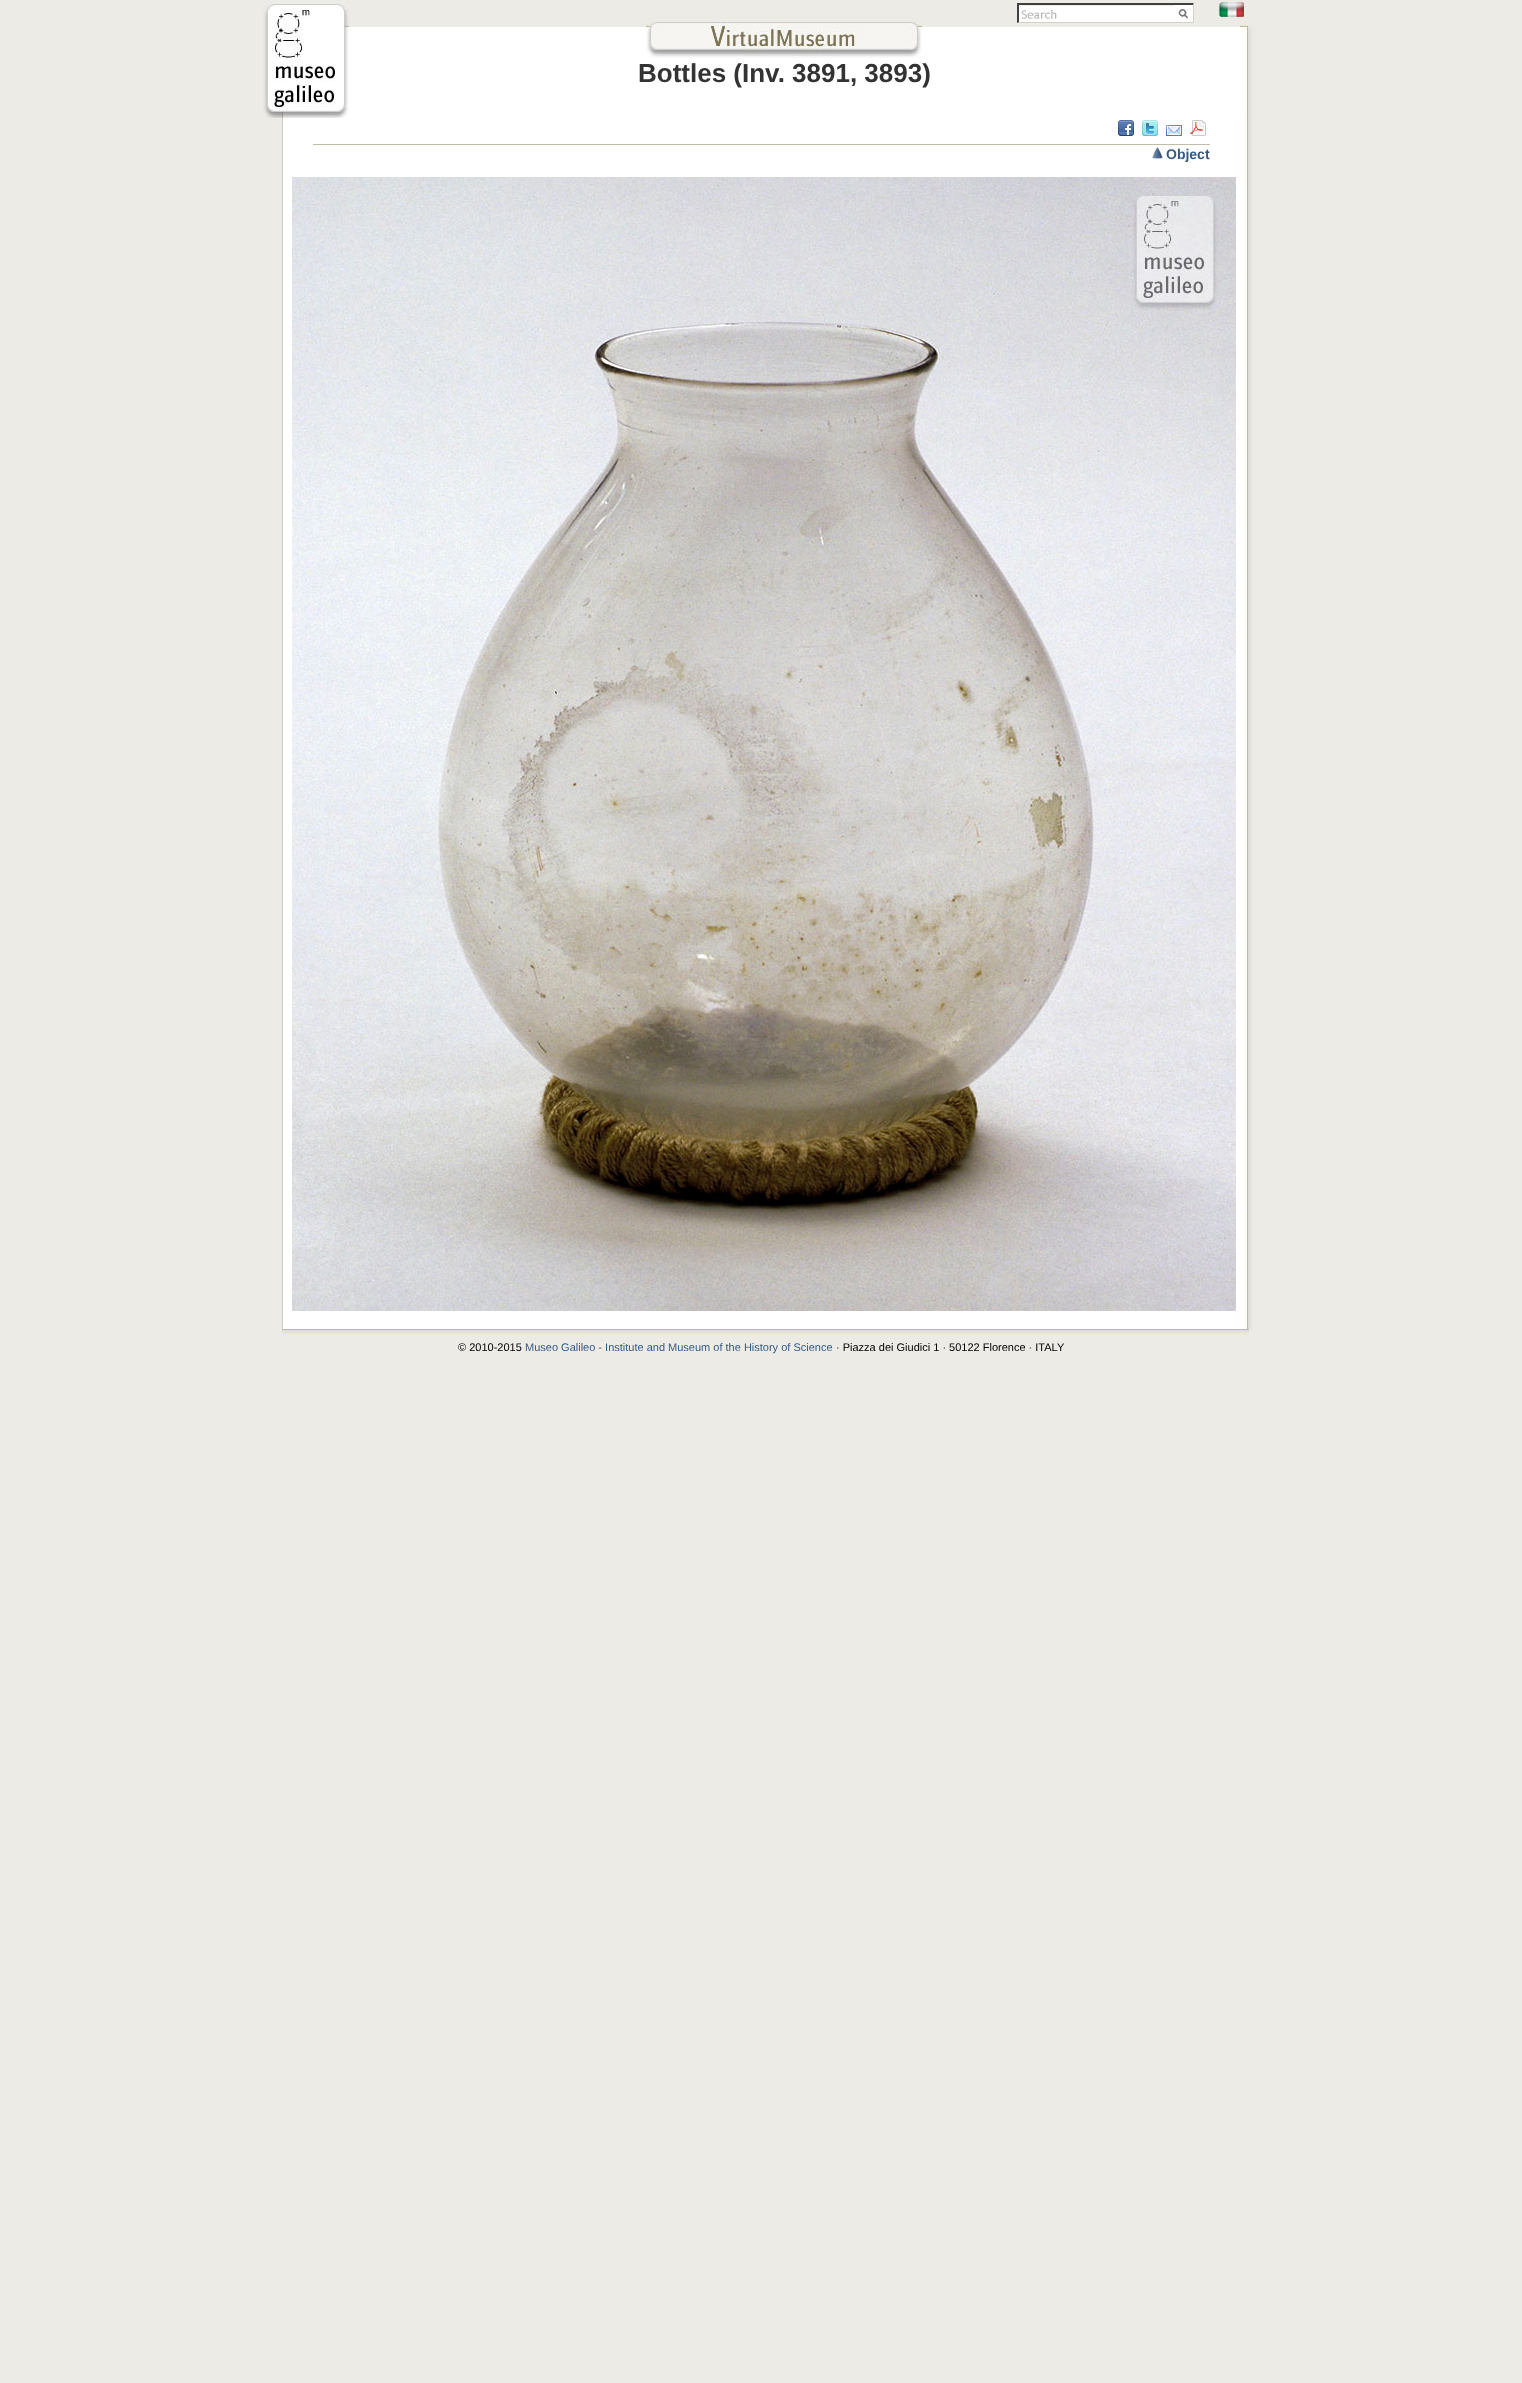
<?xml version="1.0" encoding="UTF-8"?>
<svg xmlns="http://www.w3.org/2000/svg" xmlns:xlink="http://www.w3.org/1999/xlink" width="1522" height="2383">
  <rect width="100%" height="100%" fill="#edebe6" />
  <rect x="349" y="27" width="891" height="91" fill="#ffffff" />
  <image x="263" y="2" width="86" height="116" xlink:href="image1.png" />
  <image x="1019" y="6" width="155" height="16" xlink:href="image2.png" />
  <rect x="1017" y="3" width="157" height="2" fill="#404040" />
  <path d="M 1174 23 h -157 l 2 -1 h 155 z" fill="#d4d0c8" />
  <path d="M 1017 23 v -20 l 2 2 v 17 z" fill="#404040" />
  <rect x="1174" y="3" width="20" height="19" fill="#ffffff" />
  <image x="1178" y="9" width="10" height="10" xlink:href="image3.png" />
  <path d="M 1174 3 h 20 l -1 2 h -19 z" fill="#404040" />
  <path d="M 1194 3 v 20 l -1 -1 v -17 z" fill="#d4d0c8" />
  <rect x="1174" y="22" width="20" height="1" fill="#d4d0c8" />
  <image x="1219" y="2" width="25" height="15" xlink:href="image4.png" />
  <image x="1240" y="22" width="19" height="96" xlink:href="image5.png" />
  <image x="646" y="22" width="276" height="36" xlink:href="image6.png" />
  <image x="282" y="1329" width="967" height="6" xlink:href="image7.png" />
  <rect x="283" y="118" width="961" height="1211" fill="#ffffff" />
  <image x="1244" y="118" width="10" height="1211" xlink:href="image8.png" />
  <rect x="282" y="118" width="1" height="1211" fill="#cccccc" />
  <rect x="313" y="144" width="897" height="1" fill="#bfbda5" />
  <image x="1118" y="120" width="16" height="16" xlink:href="image9.png" />
  <image x="1142" y="120" width="16" height="16" xlink:href="image10.png" />
  <image x="1166" y="125" width="16" height="11" xlink:href="image11.png" />
  <image x="1190" y="120" width="16" height="16" xlink:href="image12.png" />
  <image x="1152" y="147" width="11" height="12" xlink:href="image13.png" />
  <image x="292" y="177" width="944" height="1134" xlink:href="image14.png" />
  <text x="638" y="82" style="font-family: Liberation Sans; font-size: 26px; font-weight: bold; fill: #333333">Bottles (Inv. 3891, 3893)</text>
  <text x="1166" y="159" style="font-family: Liberation Sans; font-size: 14px; font-weight: bold; fill: #355b82">Object</text>
  <text x="458" y="1351" style="font-family: Liberation Sans; font-size: 11px; fill: #000000">© 2010-2015</text>
  <text x="525" y="1351" style="font-family: Liberation Sans; font-size: 11px; fill: #355b82">Museo Galileo - Institute and Museum of the History of Science</text>
  <text x="836" y="1351" style="font-family: Liberation Sans; font-size: 11px; fill: #000000">· Piazza dei Giudici 1 · 50122 Florence · ITALY</text>
</svg>
